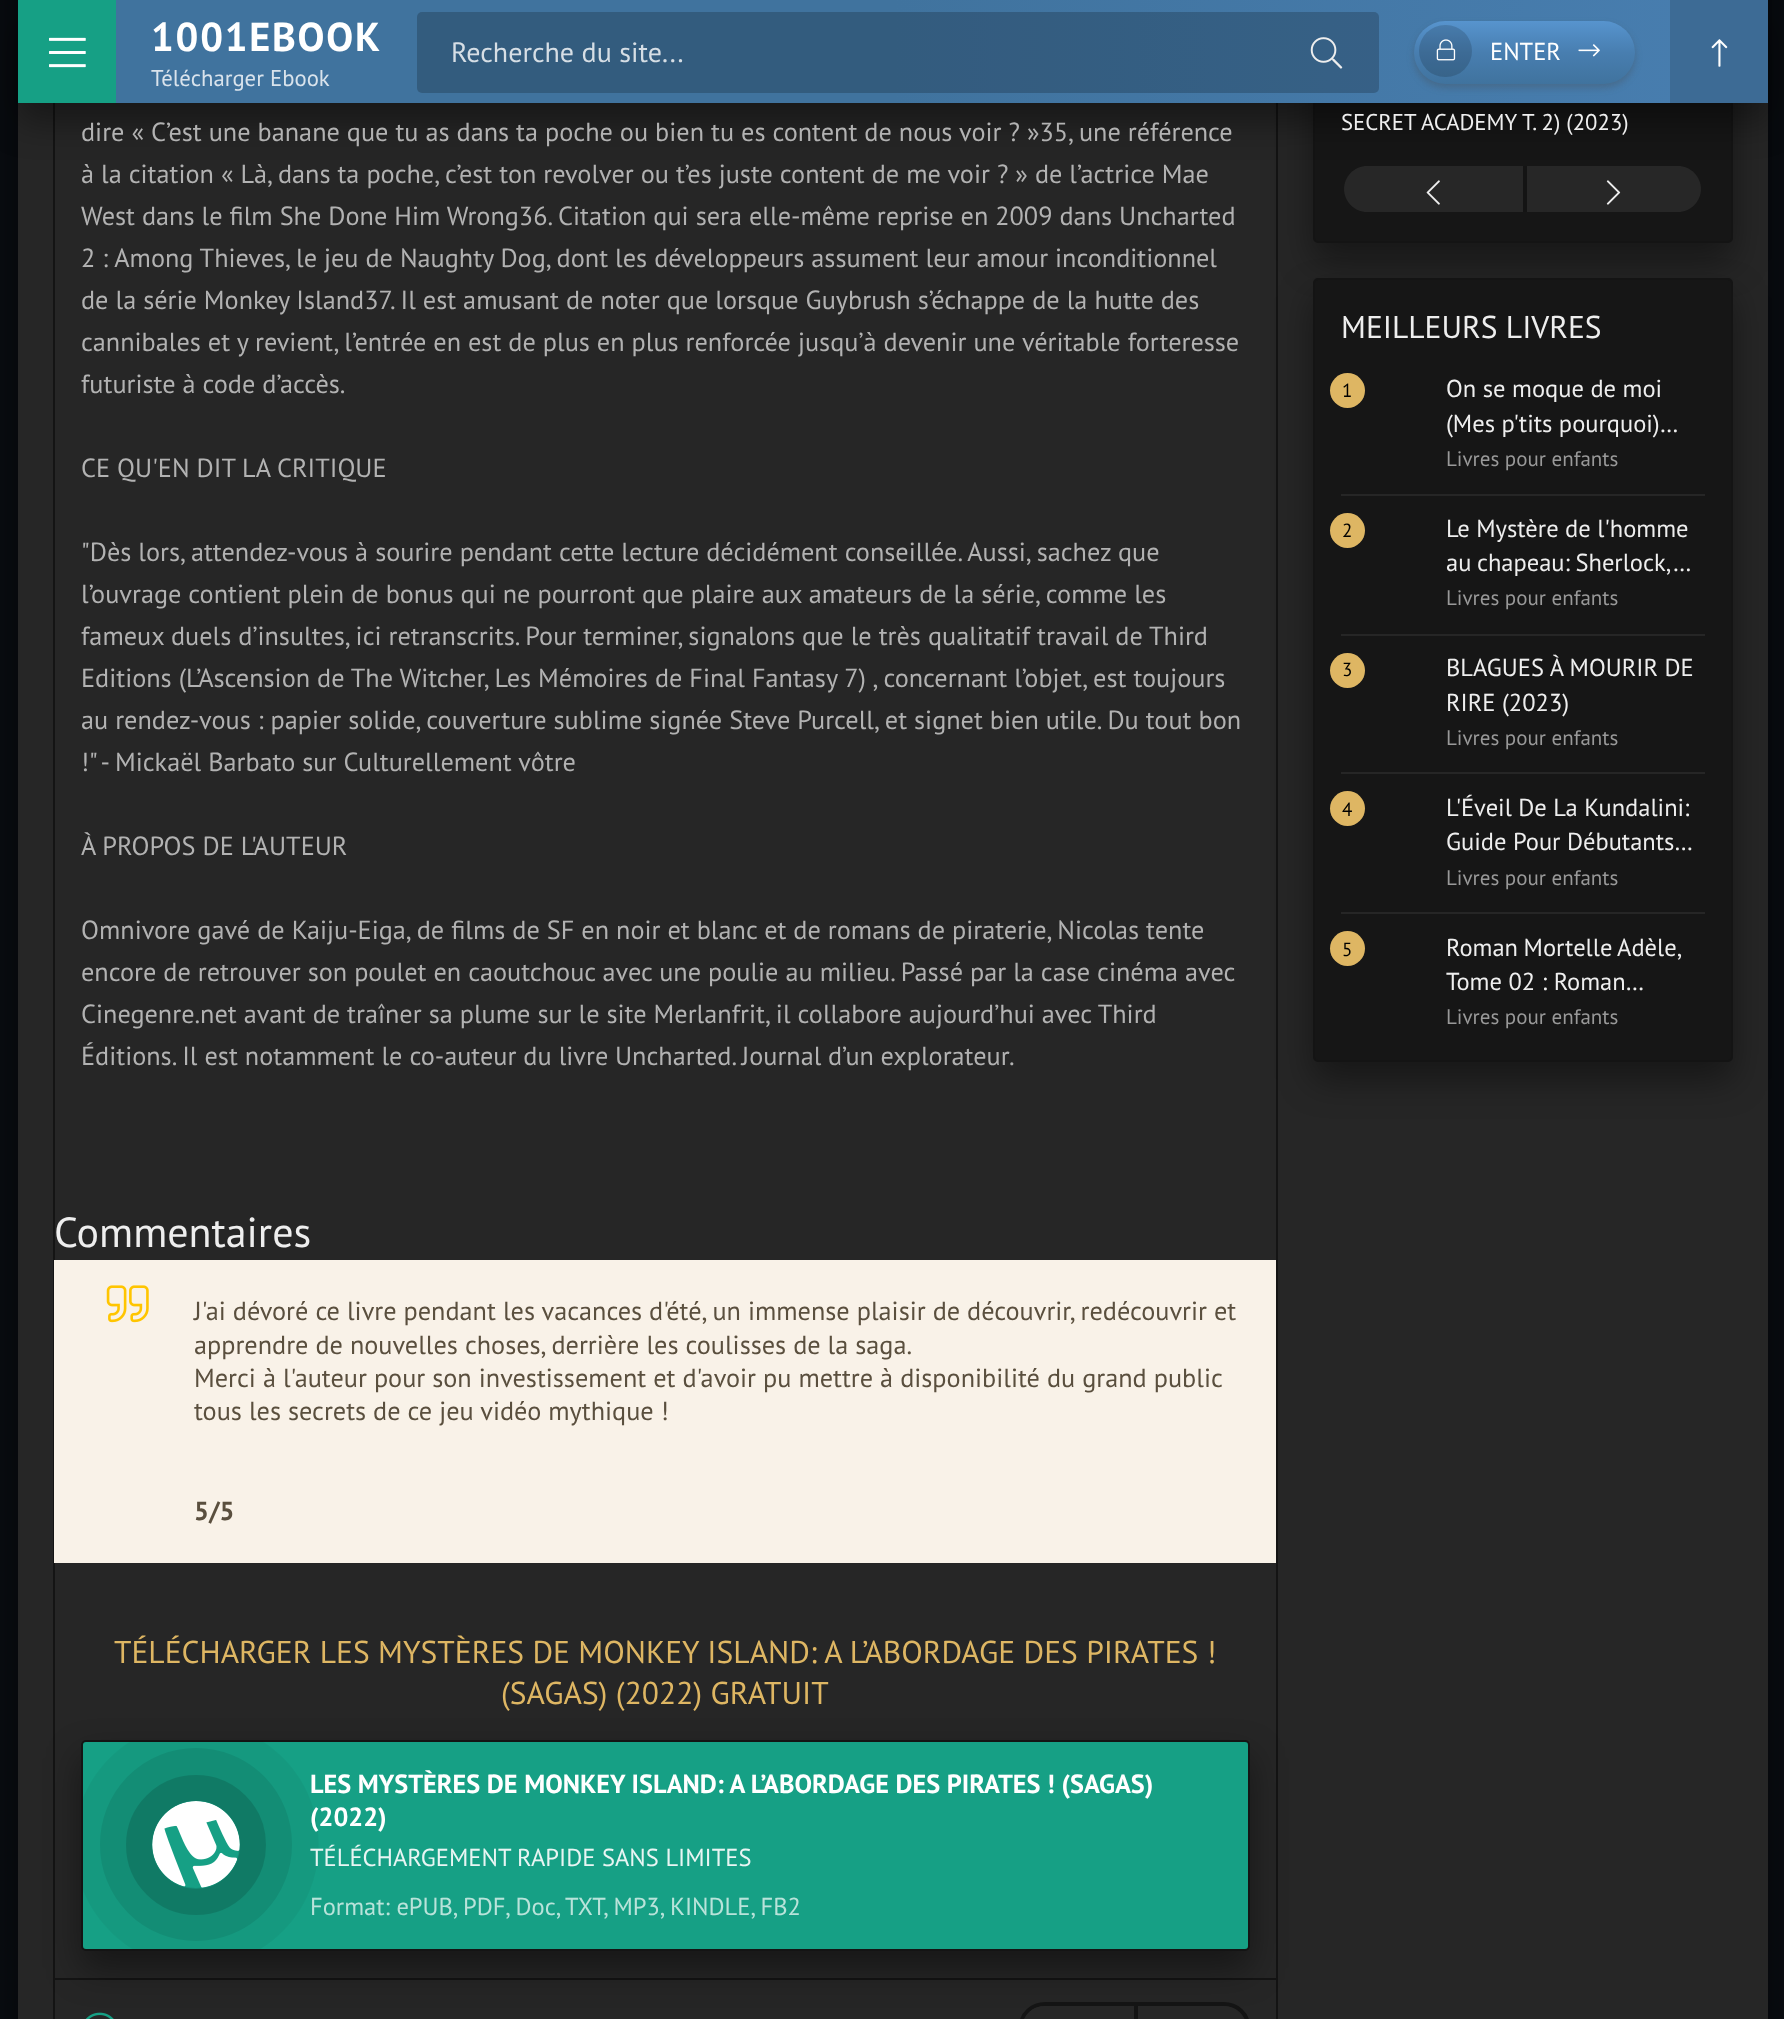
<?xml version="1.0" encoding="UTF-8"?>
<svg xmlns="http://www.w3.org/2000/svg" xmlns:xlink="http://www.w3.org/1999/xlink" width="1784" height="2019">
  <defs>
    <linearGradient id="g1" gradientUnits="userSpaceOnUse" x1="18" y1="52" x2="1768" y2="52"><stop offset="0" stop-color="#40739e" /><stop offset="0.5" stop-color="#40739e" /><stop offset="1" stop-color="#487eb0" /></linearGradient>
    <linearGradient id="g2" gradientUnits="userSpaceOnUse" x1="1524" y1="84" x2="1524" y2="21"><stop offset="0" stop-color="#40739e" /><stop offset="0.5" stop-color="#487eb0" /><stop offset="1" stop-color="#5794ce" /></linearGradient>
  </defs>
  <rect width="100%" height="100%" fill="#0c1016" />
  <rect x="18" y="-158" width="1750" height="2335" fill="#000000" fill-opacity="0.8" filter="blur(52.5px)" />
  <rect x="18" y="103" width="1750" height="1916" fill="#262626" />
  <rect x="54" y="-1" width="1223" height="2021" fill="none" stroke="#141414" stroke-width="2" />
  <rect x="1313" y="-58" width="420" height="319" rx="5" fill="#000000" fill-opacity="0.4" filter="blur(17.5px)" />
  <rect x="1314" y="-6" width="418" height="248" rx="4" fill="#161616" stroke="#141414" stroke-width="2" />
  <path d="M 1367 166 h 156 v 46 h -156 c -12.5 0 -23 -10.5 -23 -23 c 0 -12.5 10.5 -23 23 -23 z" fill="#272727" />
  <path d="M 1523 166 h 155 c 12.5 0 23 10.5 23 23 c 0 12.5 -10.5 23 -23 23 h -155 z" fill="#272727" />
  <rect x="1523" y="166" width="4" height="46" fill="#141414" />
  <rect x="18" y="18" width="1750" height="103" fill="#000000" fill-opacity="0.4" filter="blur(17.5px)" />
  <rect x="116" width="1554" height="103" fill="url(#g1)" />
  <rect x="18" width="98" height="103" fill="#16a085" />
  <image x="49" y="37" width="37" height="31" xlink:href="image1.png" />
  <rect x="417" y="12" width="962" height="81" rx="5" fill="#000000" fill-opacity="0.2" />
  <image x="1310" y="37" width="33" height="32" xlink:href="image2.png" />
  <rect x="1414" y="25" width="221" height="63" rx="31.5" fill="#444444" fill-opacity="0.3" filter="blur(3.5px)" />
  <rect x="1414" y="21" width="221" height="63" rx="31.5" fill="url(#g2)" />
  <rect x="1419" y="25" width="53" height="52" rx="26" fill="#000000" fill-opacity="0.15" />
  <image x="1436" y="39" width="20" height="22" xlink:href="image3.png" />
  <image x="1578" y="44" width="22" height="13" xlink:href="image4.png" />
  <rect x="1670" width="98" height="103" fill="#3d6b95" />
  <image x="1711" y="39" width="17" height="28" xlink:href="image5.png" />
  <rect x="54" y="1260" width="1222" height="303" fill="#f9f2e8" />
  <image x="106" y="1285" width="43" height="38" xlink:href="image6.png" />
  <rect x="54" y="1978" width="1222" height="2" fill="#141414" />
  <rect x="81" y="1757" width="1169" height="212" rx="5" fill="#000000" fill-opacity="0.4" filter="blur(17.5px)" />
  <rect x="82" y="1741" width="1167" height="209" rx="4" fill="#16a085" stroke="#141414" stroke-width="2" />
  <path d="M 82 1801 c 9 -25 27 -46 49 -60 h 131 c 77 49 75 162 -3 209 h -125 c -23 -14 -42 -36 -52 -62 z m 114 0 c -24 0 -43 19 -43 43 c 0 25 19 44 43 44 c 25 0 44 -19 44 -44 c 0 -24 -19 -43 -44 -43 z" fill="#000000" fill-opacity="0.04" fill-rule="evenodd" />
  <rect x="126.5" y="1774.5" width="139" height="140" rx="69.5" fill="none" stroke="#000000" stroke-opacity="0.08" stroke-width="53" />
  <circle cx="196" cy="1845" r="57" fill="none" stroke="#000000" stroke-opacity="0.13" stroke-width="26" />
  <image x="152" y="1801" width="88" height="87" xlink:href="image7.png" />
  <image x="85" y="2012" width="29" height="7" xlink:href="image8.png" />
  <rect x="1021" y="2004" width="227" height="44" rx="24.5" fill="none" stroke="#141414" stroke-width="4" />
  <path d="M 1044.5 2006 h 89.5 v 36 h -89.5 c -12.5 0 -22.5 -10 -22.5 -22.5 v 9 c 0 -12.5 10 -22.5 22.5 -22.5 z" fill="#272727" />
  <path d="M 1134 2006 h 89.5 c 12.5 0 22.5 10 22.5 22.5 v -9 c 0 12.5 -10 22.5 -22.5 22.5 h -89.5 z" fill="#272727" />
  <rect x="1134" y="2006" width="4" height="13" fill="#141414" />
  <image x="1426" y="180" width="14" height="25" xlink:href="image9.png" />
  <image x="1606" y="180" width="15" height="25" xlink:href="image10.png" />
  <rect x="1313" y="296" width="420" height="784" rx="5" fill="#000000" fill-opacity="0.4" filter="blur(17.5px)" />
  <rect x="1314" y="279" width="418" height="782" rx="4" fill="#161616" stroke="#141414" stroke-width="2" />
  <circle cx="1347.5" cy="390.5" r="17.5" fill="#deb663" />
  <rect x="1341" y="494" width="364" height="2" fill="#262626" />
  <circle cx="1347.5" cy="530.5" r="17.5" fill="#deb663" />
  <rect x="1341" y="634" width="364" height="2" fill="#262626" />
  <circle cx="1347.5" cy="670.5" r="17.5" fill="#deb663" />
  <rect x="1341" y="772" width="364" height="2" fill="#262626" />
  <circle cx="1347.5" cy="808.5" r="17.5" fill="#deb663" />
  <rect x="1341" y="912" width="364" height="2" fill="#262626" />
  <circle cx="1347.5" cy="948.5" r="17.5" fill="#deb663" />
  <text x="151" y="51" style="font-family: PT Sans; font-size: 40.25px; font-weight: bold; letter-spacing: 1.75px; fill: #ffffff">1001EBOOK</text>
  <text x="151" y="86" style="font-family: PT Sans; font-size: 22.75px; fill: #d9e3ec">Télécharger Ebook</text>
  <text x="451" y="62" style="font-family: PT Sans; font-size: 28px; fill: #d6dee5">Recherche du site...</text>
  <text x="1490" y="60" style="font-family: PT Sans; font-size: 24.5px; fill: #ffffff">ENTER</text>
  <text x="81" y="141" style="font-family: PT Sans; font-size: 26.25px; fill: #b2b2b2">dire « C’est une banane que tu as dans ta poche ou bien tu es content de nous voir ? »35, une référence</text>
  <text x="81" y="183" style="font-family: PT Sans; font-size: 26.25px; fill: #b2b2b2">à la citation « Là, dans ta poche, c’est ton revolver ou t’es juste content de me voir ? » de l’actrice Mae</text>
  <text x="81" y="225" style="font-family: PT Sans; font-size: 26.25px; fill: #b2b2b2">West dans le film She Done Him Wrong36. Citation qui sera elle-même reprise en 2009 dans Uncharted</text>
  <text x="81" y="267" style="font-family: PT Sans; font-size: 26.25px; fill: #b2b2b2">2 : Among Thieves, le jeu de Naughty Dog, dont les développeurs assument leur amour inconditionnel</text>
  <text x="81" y="309" style="font-family: PT Sans; font-size: 26.25px; fill: #b2b2b2">de la série Monkey Island37. Il est amusant de noter que lorsque Guybrush s’échappe de la hutte des</text>
  <text x="81" y="351" style="font-family: PT Sans; font-size: 26.25px; fill: #b2b2b2">cannibales et y revient, l’entrée en est de plus en plus renforcée jusqu’à devenir une véritable forteresse</text>
  <text x="81" y="393" style="font-family: PT Sans; font-size: 26.25px; fill: #b2b2b2">futuriste à code d’accès.</text>
  <text x="81" y="477" style="font-family: PT Sans; font-size: 26.25px; fill: #b2b2b2">CE QU'EN DIT LA CRITIQUE</text>
  <text x="81" y="561" style="font-family: PT Sans; font-size: 26.25px; fill: #b2b2b2">"Dès lors, attendez-vous à sourire pendant cette lecture décidément conseillée. Aussi, sachez que</text>
  <text x="81" y="603" style="font-family: PT Sans; font-size: 26.25px; fill: #b2b2b2">l’ouvrage contient plein de bonus qui ne pourront que plaire aux amateurs de la série, comme les</text>
  <text x="81" y="645" style="font-family: PT Sans; font-size: 26.25px; fill: #b2b2b2">fameux duels d’insultes, ici retranscrits. Pour terminer, signalons que le très qualitatif travail de Third</text>
  <text x="81" y="687" style="font-family: PT Sans; font-size: 26.25px; fill: #b2b2b2">Editions (L’Ascension de The Witcher, Les Mémoires de Final Fantasy 7) , concernant l’objet, est toujours</text>
  <text x="81" y="729" style="font-family: PT Sans; font-size: 26.25px; fill: #b2b2b2">au rendez-vous : papier solide, couverture sublime signée Steve Purcell, et signet bien utile. Du tout bon</text>
  <text x="81" y="771" style="font-family: PT Sans; font-size: 26.25px; fill: #b2b2b2">!" - Mickaël Barbato sur Culturellement vôtre</text>
  <text x="81" y="855" style="font-family: PT Sans; font-size: 26.25px; fill: #b2b2b2">À PROPOS DE L'AUTEUR</text>
  <text x="81" y="939" style="font-family: PT Sans; font-size: 26.25px; fill: #b2b2b2">Omnivore gavé de Kaiju-Eiga, de films de SF en noir et blanc et de romans de piraterie, Nicolas tente</text>
  <text x="81" y="981" style="font-family: PT Sans; font-size: 26.25px; fill: #b2b2b2">encore de retrouver son poulet en caoutchouc avec une poulie au milieu. Passé par la case cinéma avec</text>
  <text x="81" y="1023" style="font-family: PT Sans; font-size: 26.25px; fill: #b2b2b2">Cinegenre.net avant de traîner sa plume sur le site Merlanfrit</text>
  <text x="765" y="1023" style="font-family: PT Sans; font-size: 26.25px; fill: #b2b2b2">, il collabore aujourd’hui avec Third</text>
  <text x="81" y="1065" style="font-family: PT Sans; font-size: 26.25px; fill: #b2b2b2">Éditions. Il est notamment le co-auteur du livre</text>
  <text x="615" y="1065" word-spacing="-0.5" style="font-family: PT Sans; font-size: 26.25px; fill: #b2b2b2">Uncharted. Journal d’un explorateur</text>
  <text x="1009" y="1065" style="font-family: PT Sans; font-size: 26.25px; fill: #b2b2b2">.</text>
  <text x="54" y="1247" style="font-family: PT Sans; font-size: 42px; fill: #eeeeee">Commentaires</text>
  <text x="194" y="1320" style="font-family: PT Sans; font-size: 26.25px; fill: #5a4f3e">J'ai dévoré ce livre pendant les vacances d'été, un immense plaisir de découvrir, redécouvrir et</text>
  <text x="194" y="1354" style="font-family: PT Sans; font-size: 26.25px; fill: #5a4f3e">apprendre de nouvelles choses, derrière les coulisses de la saga.</text>
  <text x="194" y="1387" style="font-family: PT Sans; font-size: 26.25px; fill: #5a4f3e">Merci à l'auteur pour son investissement et d'avoir pu mettre à disponibilité du grand public</text>
  <text x="194" y="1420" style="font-family: PT Sans; font-size: 26.25px; fill: #5a4f3e">tous les secrets de ce jeu vidéo mythique !</text>
  <text x="194" y="1520" style="font-family: PT Sans; font-size: 26.25px; font-weight: bold; fill: #5a4f3e">5/5</text>
  <text x="114" y="1663" style="font-family: PT Sans; font-size: 31.5px; fill: #deb663">TÉLÉCHARGER LES MYSTÈRES DE MONKEY ISLAND: A L’ABORDAGE DES PIRATES !</text>
  <text x="501" y="1704" style="font-family: PT Sans; font-size: 31.5px; fill: #deb663">(SAGAS) (2022) GRATUIT</text>
  <text x="310" y="1793" style="font-family: PT Sans; font-size: 26.25px; font-weight: bold; fill: #ffffff">LES MYSTÈRES DE MONKEY ISLAND: A L’ABORDAGE DES PIRATES ! (SAGAS)</text>
  <text x="310" y="1826" style="font-family: PT Sans; font-size: 26.25px; font-weight: bold; fill: #ffffff">(2022)</text>
  <text x="310" y="1866" style="font-family: PT Sans; font-size: 24.5px; fill: #e8f5f3">TÉLÉCHARGEMENT RAPIDE</text>
  <text x="602" y="1866" style="font-family: PT Sans; font-size: 24.5px; fill: #e8f5f3">SANS LIMITES</text>
  <text x="310" y="1915" style="font-family: PT Sans; font-size: 24.5px; fill: #b9e3da">Format: ePUB, PDF, Doc, TXT, MP3, KINDLE, FB2</text>
  <text x="1341" y="130" style="font-family: PT Sans; font-size: 22.75px; fill: #eeeeee">SECRET ACADEMY T. 2) (2023)</text>
  <text x="1341" y="338" style="font-family: PT Sans; font-size: 31.5px; fill: #eeeeee">MEILLEURS LIVRES</text>
  <text x="1342" y="397" style="font-family: PT Sans; font-size: 19px; fill: #000000">1</text>
  <text x="1446" y="397" style="font-family: PT Sans; font-size: 24.5px; fill: #eeeeee">On se moque de moi</text>
  <text x="1446" y="432" style="font-family: PT Sans; font-size: 24.5px; fill: #eeeeee">(Mes p'tits pourquoi)…</text>
  <text x="1446" y="466" style="font-family: PT Sans; font-size: 21px; fill: #999999">Livres pour enfants</text>
  <text x="1342" y="537" style="font-family: PT Sans; font-size: 19px; fill: #000000">2</text>
  <text x="1446" y="537" style="font-family: PT Sans; font-size: 24.5px; fill: #eeeeee">Le Mystère de l'homme</text>
  <text x="1446" y="571" word-spacing="-1" style="font-family: PT Sans; font-size: 24.5px; fill: #eeeeee">au chapeau: Sherlock,…</text>
  <text x="1446" y="605" style="font-family: PT Sans; font-size: 21px; fill: #999999">Livres pour enfants</text>
  <text x="1342" y="676" style="font-family: PT Sans; font-size: 19px; fill: #000000">3</text>
  <text x="1446" y="676" style="font-family: PT Sans; font-size: 24.5px; fill: #eeeeee">BLAGUES À MOURIR DE</text>
  <text x="1446" y="711" style="font-family: PT Sans; font-size: 24.5px; fill: #eeeeee">RIRE (2023)</text>
  <text x="1446" y="745" style="font-family: PT Sans; font-size: 21px; fill: #999999">Livres pour enfants</text>
  <text x="1342" y="816" style="font-family: PT Sans; font-size: 19px; fill: #000000">4</text>
  <text x="1446" y="816" style="font-family: PT Sans; font-size: 24.5px; fill: #eeeeee">L'Éveil De La Kundalini:</text>
  <text x="1446" y="850" style="font-family: PT Sans; font-size: 24.5px; fill: #eeeeee">Guide Pour Débutants…</text>
  <text x="1446" y="885" style="font-family: PT Sans; font-size: 21px; fill: #999999">Livres pour enfants</text>
  <text x="1342" y="956" style="font-family: PT Sans; font-size: 19px; fill: #000000">5</text>
  <text x="1446" y="956" word-spacing="-1" style="font-family: PT Sans; font-size: 24.5px; fill: #eeeeee">Roman Mortelle Adèle,</text>
  <text x="1446" y="990" style="font-family: PT Sans; font-size: 24.5px; fill: #eeeeee">Tome 02 : Roman…</text>
  <text x="1446" y="1024" style="font-family: PT Sans; font-size: 21px; fill: #999999">Livres pour enfants</text>
</svg>
